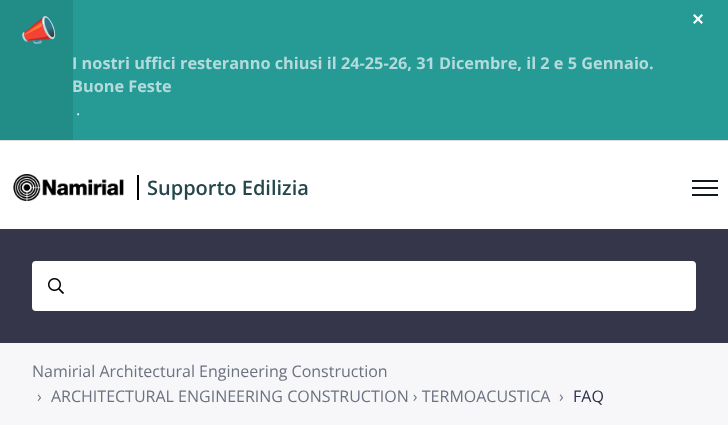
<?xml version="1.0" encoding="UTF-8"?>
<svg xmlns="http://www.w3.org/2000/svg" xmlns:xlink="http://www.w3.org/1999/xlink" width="728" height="429">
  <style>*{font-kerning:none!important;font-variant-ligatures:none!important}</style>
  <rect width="100%" height="100%" fill="#ffffff" />
  <rect x="73" width="655" height="140" fill="#269b96" />
  <rect width="73" height="140" fill="#228c87" />
  <rect y="140" width="728" height="1" fill="#dddddd" />
  <path d="M 701.5 14 l 1.5 1.5 l -8.5 8.5 l -1.5 -1.5 z" fill="#ffffff" />
  <path d="M 693 15.5 l 1.5 -1.5 l 8.5 8.5 l -1.5 1.5 z" fill="#ffffff" />
  <image x="13" y="174" width="111" height="27" xlink:href="image1.png" />
  <rect x="137" y="175" width="2" height="25" fill="#000000" />
  <rect x="692" y="187" width="26" height="2" fill="#111820" />
  <rect x="692" y="180" width="26" height="2" fill="#111820" />
  <rect x="692" y="194" width="26" height="2" fill="#111820" />
  <rect y="229" width="728" height="114" fill="#35364a" />
  <rect x="33" y="262" width="662" height="48" rx="3" fill="#ffffff" stroke="#ffffff" stroke-width="2" />
  <image x="48" y="278" width="16" height="16" xlink:href="image2.png" />
  <rect y="343" width="728" height="82" fill="#f7f7f9" />
  <text x="20" y="41" style="font-family: Noto Color Emoji; font-size: 30px; fill: #eff5f9">📣</text>
  <text x="72" y="69" style="font-family: Open Sans; font-size: 16.3px; font-weight: bold; fill: #b3dbdc">I nostri uffici resteranno chiusi il 24-25-26, 31 Dicembre, il 2 e 5 Gennaio.</text>
  <text x="72" y="92" style="font-family: Open Sans; font-size: 16.3px; font-weight: bold; fill: #b3dbdc">Buone Feste</text>
  <text x="76" y="115" style="font-family: Open Sans; font-size: 16.3px; fill: #eff5f9">.</text>
  <text x="147" y="195" style="font-family: Open Sans; font-size: 20px; font-weight: 600; fill: #25474c">Supporto Edilizia</text>
  <text x="32" y="377" style="font-family: Open Sans; font-size: 16px; fill: #6b7280">Namirial Architectural Engineering Construction</text>
  <text x="37" y="402" style="font-family: Open Sans; font-size: 16px; fill: #6b7280">›</text>
  <text x="51" y="402" style="font-family: Open Sans; font-size: 16px; fill: #6b7280">ARCHITECTURAL ENGINEERING CONSTRUCTION › TERMOACUSTICA</text>
  <text x="559" y="402" style="font-family: Open Sans; font-size: 16px; fill: #6b7280">›</text>
  <text x="573" y="402" style="font-family: Open Sans; font-size: 16px; fill: #282f48">FAQ</text>
</svg>
